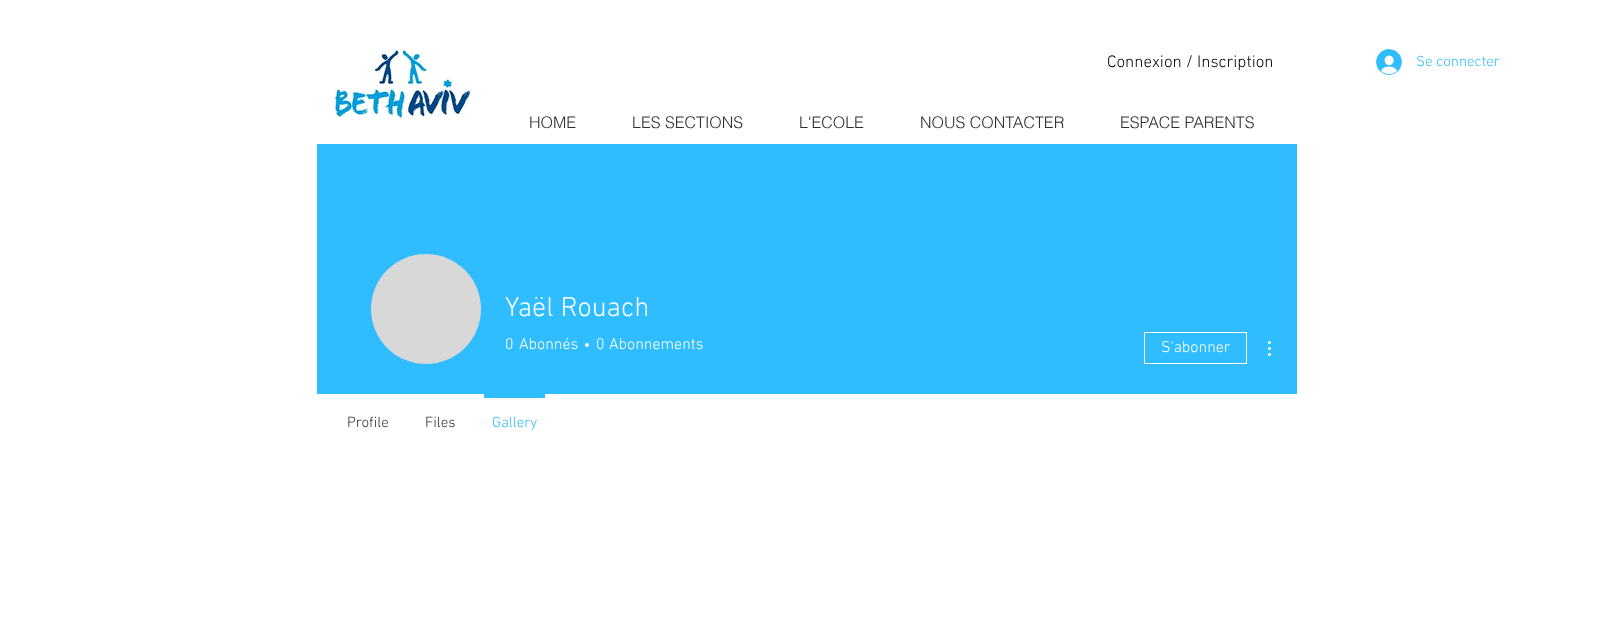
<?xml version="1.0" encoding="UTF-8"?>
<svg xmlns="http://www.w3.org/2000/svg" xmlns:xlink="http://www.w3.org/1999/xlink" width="1614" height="635">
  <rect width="100%" height="100%" fill="#ffffff" />
  <image x="335" y="50" width="136" height="68" xlink:href="image1.png" />
  <image x="1376" y="49" width="26" height="26" xlink:href="image2.png" />
  <rect x="317" y="144" width="980" height="250" fill="#30bdff" />
  <circle cx="426" cy="309" r="55" fill="#d8d8d8" />
  <circle cx="587" cy="345" r="2" fill="#ffffff" />
  <rect x="1144.5" y="332.5" width="102" height="31" fill="none" stroke="#ffffff" />
  <image x="1268" y="341" width="3" height="15" xlink:href="image3.png" />
  <rect x="484" y="394" width="61" height="4" fill="#30bdff" />
  <text x="1107" y="67" style="font-family: 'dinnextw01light'; font-size: 17px; font-weight: 300; fill: #000000">Connexion / Inscription</text>
  <text x="1416" y="66" style="font-family: 'dinnextw01light'; font-size: 15px; font-weight: 300; fill: #30bdff">Se connecter</text>
  <text x="529" y="128" style="font-family: helvetica; font-size: 16px; font-weight: 300; fill: #2f2e2e">HOME</text>
  <text x="632" y="128" style="font-family: helvetica; font-size: 16px; font-weight: 300; fill: #2f2e2e">LES SECTIONS</text>
  <text x="799" y="128" style="font-family: helvetica; font-size: 16px; font-weight: 300; fill: #2f2e2e">L'ECOLE</text>
  <text x="920" y="128" style="font-family: helvetica; font-size: 16px; font-weight: 300; fill: #2f2e2e">NOUS CONTACTER</text>
  <text x="1120" y="128" style="font-family: helvetica; font-size: 16px; font-weight: 300; fill: #2f2e2e">ESPACE PARENTS</text>
  <text x="505" y="316" style="font-family: 'dinnextw01light'; font-size: 28px; font-weight: 300; fill: #ffffff">Yaël Rouach</text>
  <text x="505" y="349" style="font-family: 'dinnextw01light'; font-size: 16px; font-weight: 300; fill: #ffffff">0</text>
  <text x="519" y="349" style="font-family: 'dinnextw01light'; font-size: 16px; font-weight: 300; fill: #ffffff">Abonnés</text>
  <text x="596" y="349" style="font-family: 'dinnextw01light'; font-size: 16px; font-weight: 300; fill: #ffffff">0</text>
  <text x="609" y="349" style="font-family: 'dinnextw01light'; font-size: 16px; font-weight: 300; fill: #ffffff">Abonnements</text>
  <text x="1161" y="352" style="font-family: 'dinnextw01light'; font-size: 16px; font-weight: 300; fill: #ffffff">S'abonner</text>
  <text x="347" y="427" style="font-family: 'dinnextw01light'; font-size: 15px; font-weight: 300; fill: #2f2e2e">Profile</text>
  <text x="425" y="427" style="font-family: 'dinnextw01light'; font-size: 15px; font-weight: 300; fill: #2f2e2e">Files</text>
  <text x="492" y="427" style="font-family: 'dinnextw01light'; font-size: 15px; font-weight: 300; fill: #30bdff">Gallery</text>
</svg>
